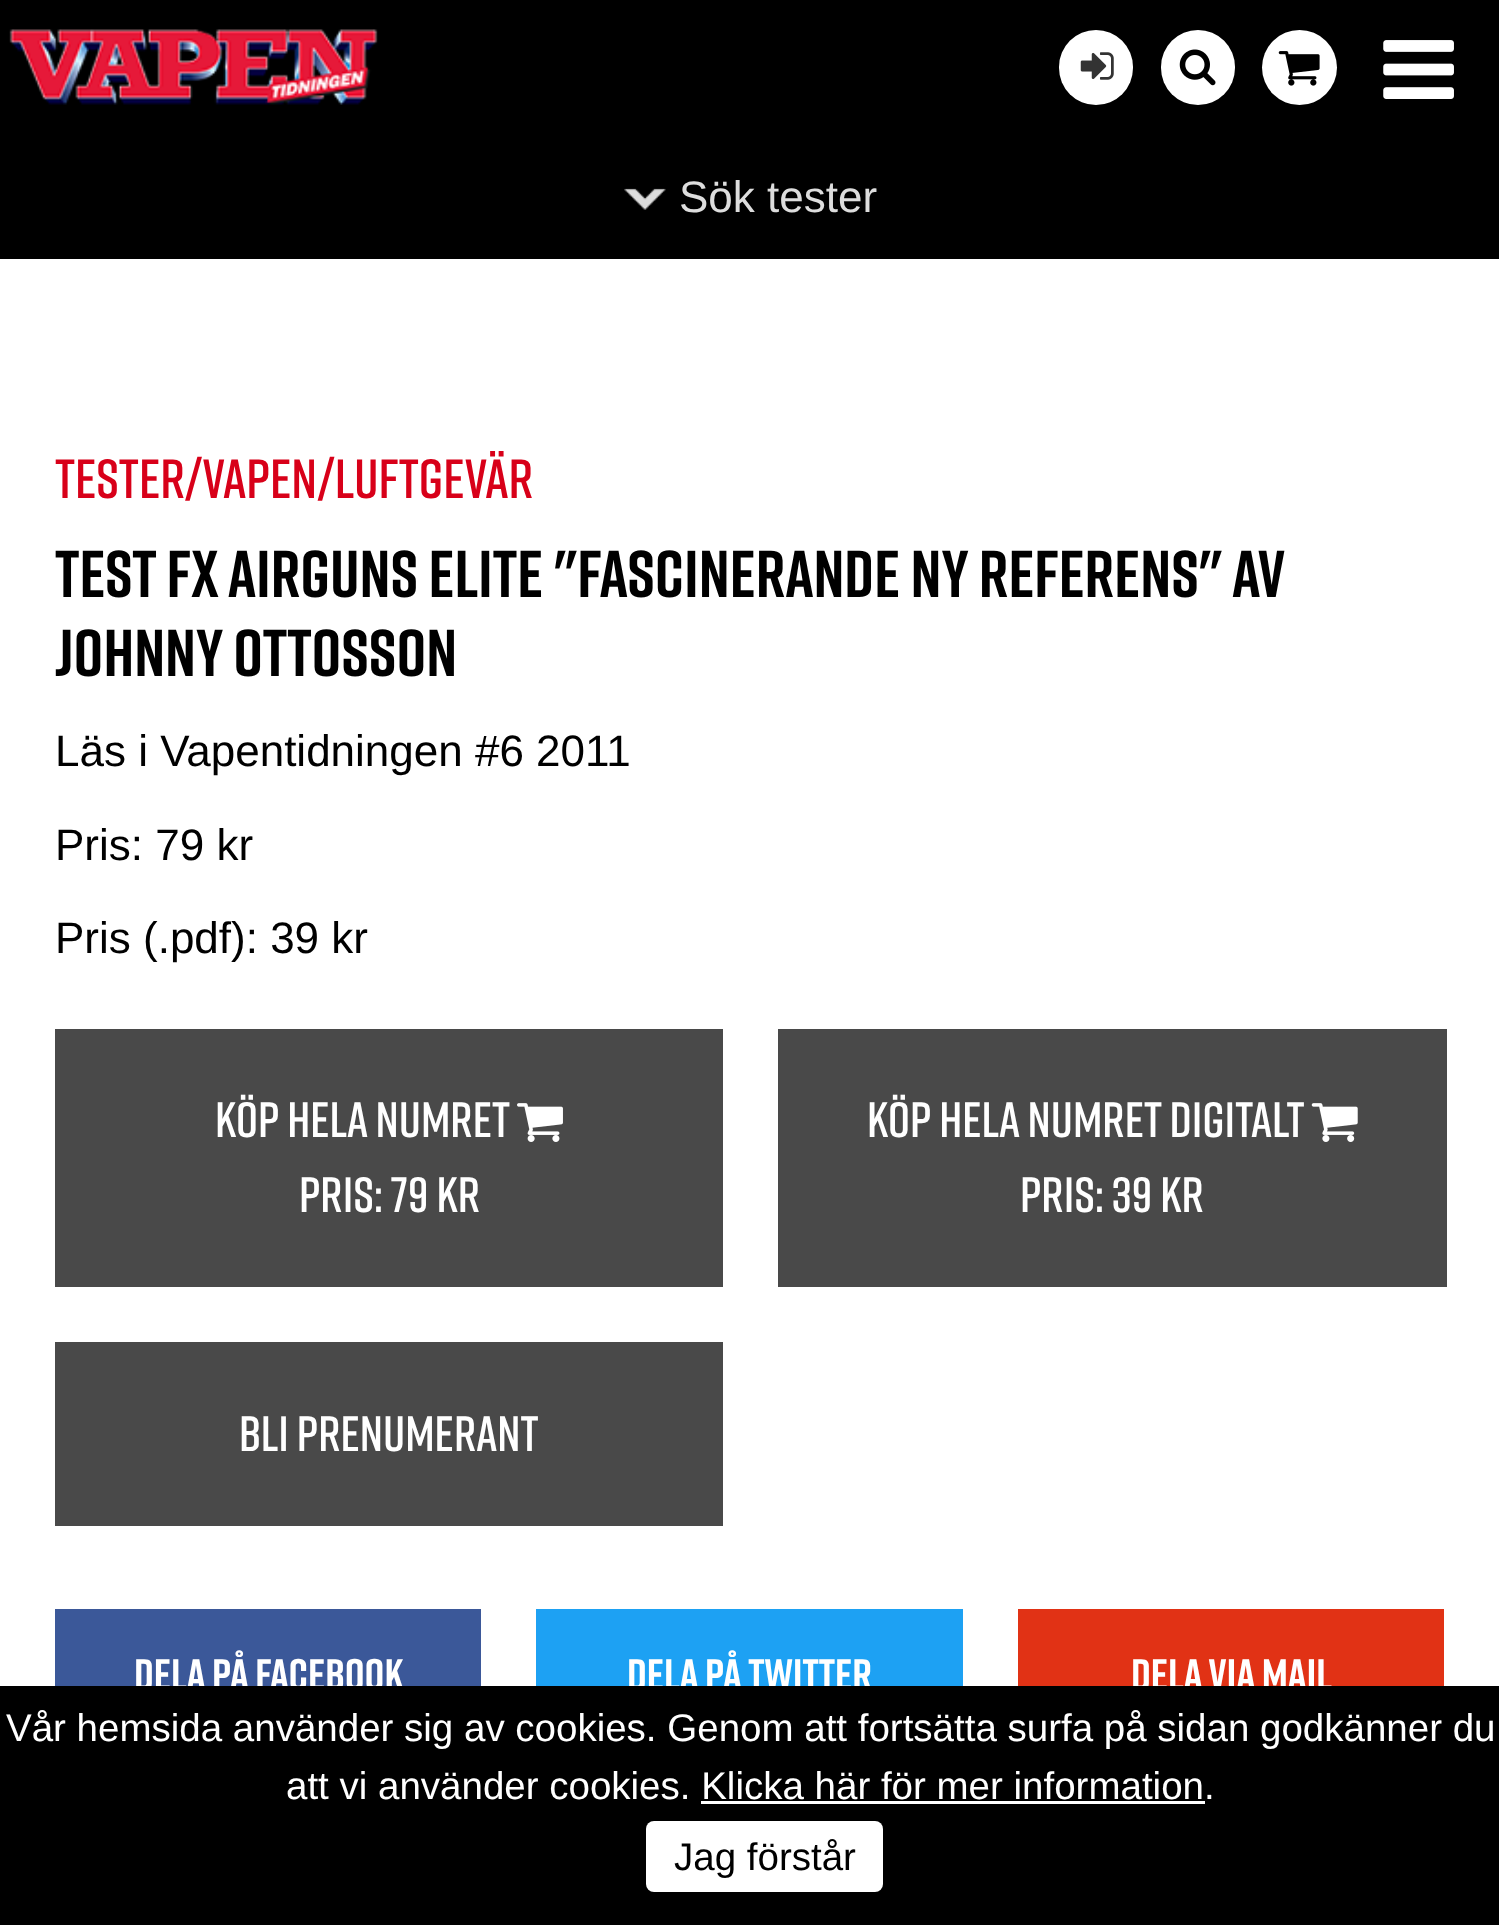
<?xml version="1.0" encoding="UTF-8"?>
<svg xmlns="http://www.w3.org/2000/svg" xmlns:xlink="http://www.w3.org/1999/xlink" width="1499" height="1925">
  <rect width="100%" height="100%" fill="#ffffff" />
  <rect width="1499" height="259" fill="#000000" />
  <image x="9" y="29" width="369" height="76" xlink:href="image1.png" />
  <rect x="1059" y="30" width="74" height="75" rx="37" fill="#ffffff" />
  <image x="1080" y="52" width="34" height="28" xlink:href="image2.png" />
  <rect x="1161" y="30" width="74" height="75" rx="37" fill="#ffffff" />
  <image x="1179" y="49" width="37" height="37" xlink:href="image3.png" />
  <circle cx="1299.5" cy="67.5" r="37.5" fill="#ffffff" />
  <image x="1278" y="51" width="42" height="35" xlink:href="image4.png" />
  <image x="1383" y="40" width="71" height="59" xlink:href="image5.png" />
  <image x="624" y="188" width="42" height="22" xlink:href="image6.png" />
  <rect x="55" y="1029" width="668" height="258" fill="#494949" />
  <image x="517" y="1103" width="46" height="39" xlink:href="image7.png" />
  <rect x="778" y="1029" width="669" height="258" fill="#494949" />
  <image x="1311" y="1103" width="47" height="39" xlink:href="image8.png" />
  <rect x="55" y="1342" width="668" height="184" fill="#494949" />
  <rect x="55" y="1609" width="426" height="77" fill="#3b5899" />
  <rect x="536" y="1609" width="427" height="77" fill="#1da1f3" />
  <rect x="1018" y="1609" width="426" height="77" fill="#e13215" />
  <text x="679" y="212" style="font-family: Liberation Sans; font-size: 44px; fill: #dddddd">Sök tester</text>
  <text x="55" y="498" style="font-family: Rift; font-size: 55px; font-weight: 600; fill: #d80019">Tester/Vapen/Luftgevär</text>
  <text x="55" y="597" style="font-family: Rift; font-size: 66px; font-weight: bold; fill: #000000">TEST FX AIRGUNS ELITE "Fascinerande ny referens" Av</text>
  <text x="55" y="676" style="font-family: Rift; font-size: 66px; font-weight: bold; fill: #000000">Johnny Ottosson</text>
  <text x="55" y="766" style="font-family: Liberation Sans; font-size: 44px; fill: #000000">Läs i Vapentidningen #6 2011</text>
  <text x="55" y="860" style="font-family: Liberation Sans; font-size: 44px; fill: #000000">Pris: 79 kr</text>
  <text x="55" y="953" style="font-family: Liberation Sans; font-size: 44px; fill: #000000">Pris (.pdf): 39 kr</text>
  <text x="215" y="1137" style="font-family: Rift; font-size: 49.5px; font-weight: 600; fill: #ffffff">Köp hela numret</text>
  <text x="299" y="1212" style="font-family: Rift; font-size: 49.5px; font-weight: 600; fill: #ffffff">Pris: 79 kr</text>
  <text x="867" y="1137" style="font-family: Rift; font-size: 49.5px; font-weight: 600; fill: #ffffff">Köp hela numret digitalt</text>
  <text x="1020" y="1212" style="font-family: Rift; font-size: 49.5px; font-weight: 600; fill: #ffffff">Pris: 39 kr</text>
  <text x="239" y="1451" style="font-family: Rift; font-size: 49.5px; font-weight: 600; fill: #ffffff">Bli prenumerant</text>
  <text x="134" y="1690" style="font-family: Rift; font-size: 44px; font-weight: bold; fill: #ffffff">DELA PÅ FACEBOOK</text>
  <text x="627" y="1690" style="font-family: Rift; font-size: 44px; font-weight: bold; fill: #ffffff">DELA PÅ TWITTER</text>
  <text x="1131" y="1690" style="font-family: Rift; font-size: 44px; font-weight: bold; fill: #ffffff">DELA VIA MAIL</text>
  <rect y="1686" width="1499" height="239" fill="#000000" />
  <text x="6" y="1741" style="font-family: Liberation Sans; font-size: 38.5px; fill: #ffffff">Vår hemsida använder sig av cookies. Genom att fortsätta surfa på sidan godkänner du</text>
  <text x="286" y="1799" style="font-family: Liberation Sans; font-size: 38.5px; fill: #ffffff">att vi använder cookies. Klicka här för mer information.</text>
  <rect x="701" y="1801" width="504" height="3" fill="#ffffff" />
  <rect x="646" y="1821" width="237" height="71" rx="8" fill="#ffffff" />
  <text x="674" y="1870" style="font-family: Liberation Sans; font-size: 38.5px; fill: #000000">Jag förstår</text>
</svg>
